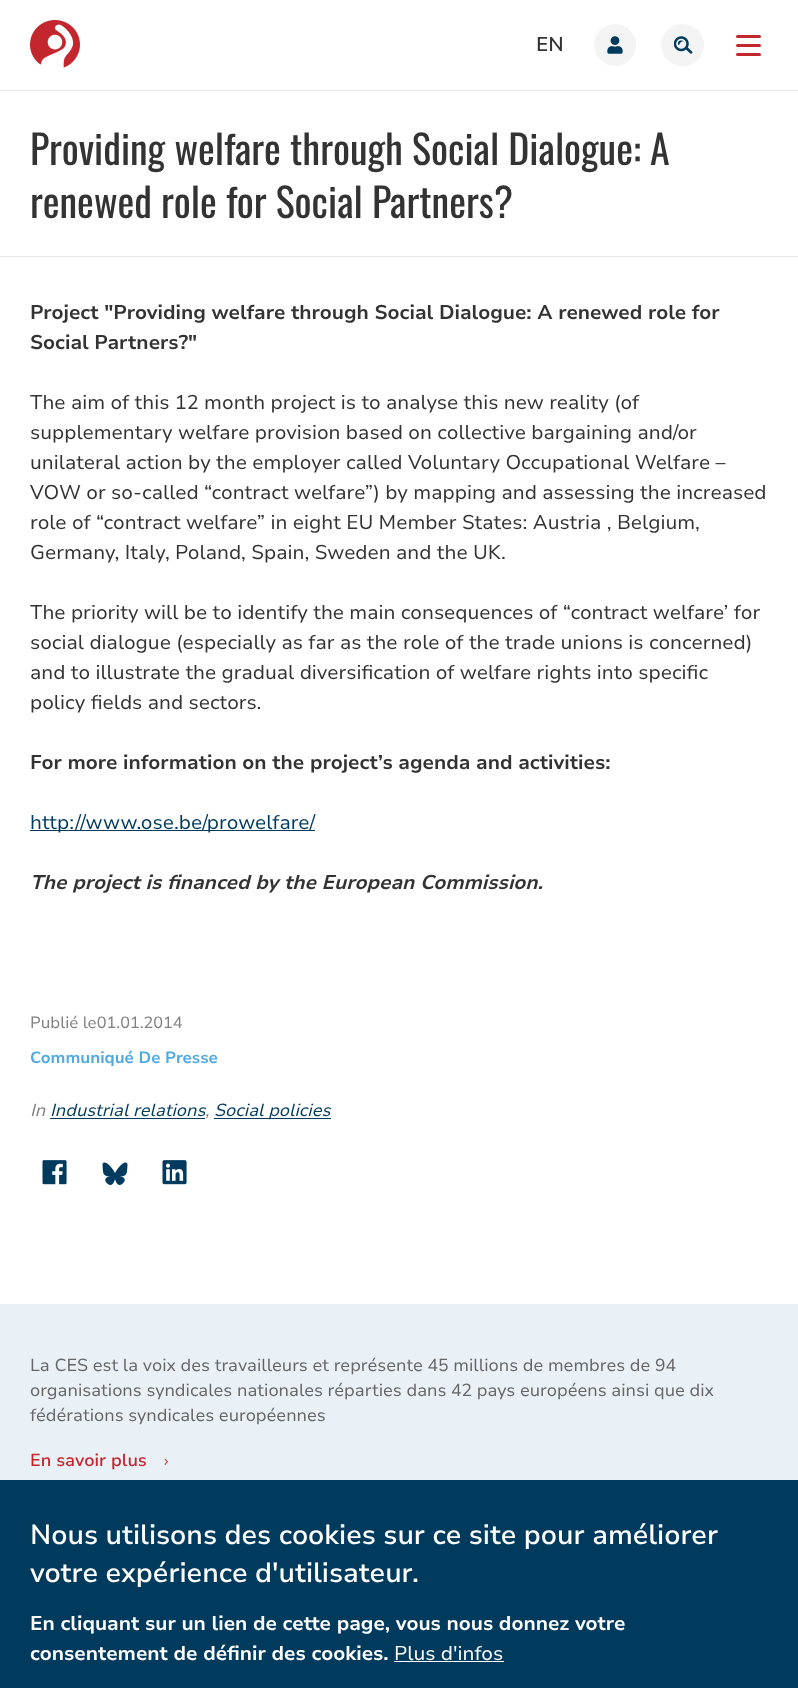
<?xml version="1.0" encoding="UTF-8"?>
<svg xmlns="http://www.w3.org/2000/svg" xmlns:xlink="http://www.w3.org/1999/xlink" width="798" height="1688">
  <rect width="100%" height="100%" fill="#ffffff" />
  <rect y="90" width="798" height="1" fill="#e7e7e7" />
  <image x="30" y="20" width="50" height="48" xlink:href="image1.png" />
  <circle cx="615" cy="45" r="21" fill="#f4f4f4" />
  <image x="607" y="36" width="16" height="18" xlink:href="image2.png" />
  <rect x="661" y="24" width="43" height="42" rx="21" fill="#f4f4f4" />
  <image x="674" y="36" width="19" height="18" xlink:href="image3.png" />
  <rect x="736" y="44" width="25" height="3" rx="1.5" fill="#c4262e" />
  <rect x="736" y="35" width="25" height="3" rx="1.5" fill="#c4262e" />
  <rect x="736" y="53" width="25" height="3" rx="1.5" fill="#c4262e" />
  <rect y="256" width="798" height="1" fill="#e7e7e7" />
  <rect x="30" y="830" width="285" height="1" fill="#003a5d" />
  <rect x="50" y="1118" width="155" height="1" fill="#003a5d" />
  <rect x="214" y="1118" width="117" height="1" fill="#003a5d" />
  <image x="42" y="1160" width="25" height="25" xlink:href="image4.png" />
  <image x="102" y="1162" width="26" height="23" xlink:href="image5.png" />
  <image x="162" y="1160" width="25" height="25" xlink:href="image6.png" />
  <rect y="1304" width="798" height="176" fill="#e9f1f7" />
  <image x="164" y="1458" width="4" height="7" xlink:href="image7.png" />
  <rect y="1480" width="798" height="208" fill="#003a5d" />
  <rect x="394" y="1661" width="110" height="1" fill="#ffffff" />
  <text x="536" y="51" style="font-family: Nunito Sans; font-size: 20px; font-weight: 600; fill: #333333">EN</text>
  <text x="30" y="165" style="font-family: Oswald; font-size: 40px; fill: #333333">Providing welfare through Social Dialogue: A</text>
  <text x="30" y="218" style="font-family: Oswald; font-size: 40px; fill: #333333">renewed role for Social Partners?</text>
  <text x="30" y="319" style="font-family: Nunito Sans; font-size: 20px; font-weight: bold; fill: #333333">Project "Providing welfare through Social Dialogue: A renewed role for</text>
  <text x="30" y="349" style="font-family: Nunito Sans; font-size: 20px; font-weight: bold; fill: #333333">Social Partners?"</text>
  <text x="30" y="409" style="font-family: Nunito Sans; font-size: 20px; fill: #333333">The aim of this 12 month project is to analyse this new reality (of</text>
  <text x="30" y="439" style="font-family: Nunito Sans; font-size: 20px; fill: #333333">supplementary welfare provision based on collective bargaining and/or</text>
  <text x="30" y="469" style="font-family: Nunito Sans; font-size: 20px; fill: #333333">unilateral action by the employer called Voluntary Occupational Welfare –</text>
  <text x="30" y="499" style="font-family: Nunito Sans; font-size: 20px; fill: #333333">VOW or so-called “contract welfare”) by mapping and assessing the increased</text>
  <text x="30" y="529" style="font-family: Nunito Sans; font-size: 20px; fill: #333333">role of “contract welfare” in eight EU Member States: Austria , Belgium,</text>
  <text x="30" y="559" style="font-family: Nunito Sans; font-size: 20px; fill: #333333">Germany, Italy, Poland, Spain, Sweden and the UK.</text>
  <text x="30" y="619" style="font-family: Nunito Sans; font-size: 20px; fill: #333333">The priority will be to identify the main consequences of “contract welfare’ for</text>
  <text x="30" y="649" style="font-family: Nunito Sans; font-size: 20px; fill: #333333">social dialogue (especially as far as the role of the trade unions is concerned)</text>
  <text x="30" y="679" style="font-family: Nunito Sans; font-size: 20px; fill: #333333">and to illustrate the gradual diversification of welfare rights into specific</text>
  <text x="30" y="709" style="font-family: Nunito Sans; font-size: 20px; fill: #333333">policy fields and sectors.</text>
  <text x="30" y="769" style="font-family: Nunito Sans; font-size: 20px; font-weight: bold; fill: #333333">For more information on the project’s agenda and activities:</text>
  <text x="30" y="829" style="font-family: Nunito Sans; font-size: 20px; fill: #003a5d">http://www.ose.be/prowelfare/</text>
  <text x="30" y="889" style="font-family: Nunito Sans; font-size: 20px; font-weight: bold; font-style: italic; fill: #333333">The project is financed by the European Commission.</text>
  <text x="30" y="1028" style="font-family: Nunito Sans; font-size: 16.25px; fill: #808080">Publié le01.01.2014</text>
  <text x="30" y="1063" style="font-family: Nunito Sans; font-size: 16.25px; font-weight: bold; fill: #50aae2">Communiqué De Presse</text>
  <text x="30" y="1116" style="font-family: Nunito Sans; font-size: 17.5px; font-style: italic; fill: #808080">In</text>
  <text x="205" y="1116" style="font-family: Nunito Sans; font-size: 17.5px; font-style: italic; fill: #808080">,</text>
  <text x="50" y="1116" style="font-family: Nunito Sans; font-size: 17.5px; font-style: italic; fill: #003a5d">Industrial relations</text>
  <text x="214" y="1116" style="font-family: Nunito Sans; font-size: 17.5px; font-style: italic; fill: #003a5d">Social policies</text>
  <text x="30" y="1371" style="font-family: Nunito Sans; font-size: 17.5px; fill: #666666">La CES est la voix des travailleurs et représente 45 millions de membres de 94</text>
  <text x="30" y="1396" style="font-family: Nunito Sans; font-size: 17.5px; fill: #666666">organisations syndicales nationales réparties dans 42 pays européens ainsi que dix</text>
  <text x="30" y="1421" style="font-family: Nunito Sans; font-size: 17.5px; fill: #666666">fédérations syndicales européennes</text>
  <text x="30" y="1466" style="font-family: Nunito Sans; font-size: 17.5px; font-weight: 600; fill: #c4262e">En savoir plus</text>
  <text x="30" y="1544" style="font-family: Nunito Sans; font-size: 27.5px; font-weight: 600; fill: #ffffff">Nous utilisons des cookies sur ce site pour améliorer</text>
  <text x="30" y="1582" style="font-family: Nunito Sans; font-size: 27.5px; font-weight: 600; fill: #ffffff">votre expérience d'utilisateur.</text>
  <text x="30" y="1630" style="font-family: Nunito Sans; font-size: 20px; font-weight: bold; fill: #ffffff">En cliquant sur un lien de cette page, vous nous donnez votre</text>
  <text x="30" y="1660" style="font-family: Nunito Sans; font-size: 20px; font-weight: bold; fill: #ffffff">consentement de définir des cookies.</text>
  <text x="394" y="1660" style="font-family: Nunito Sans; font-size: 20px; fill: #ffffff">Plus d'infos</text>
</svg>
